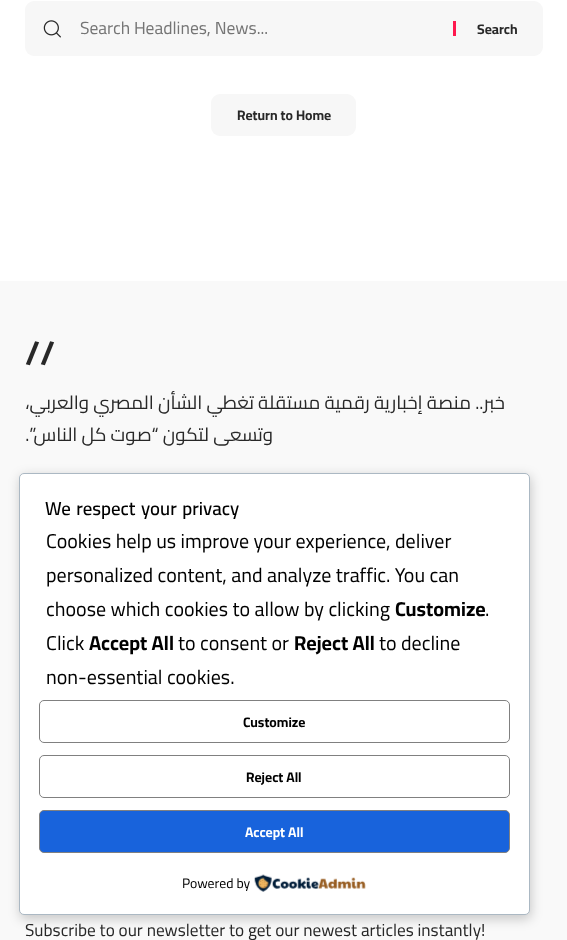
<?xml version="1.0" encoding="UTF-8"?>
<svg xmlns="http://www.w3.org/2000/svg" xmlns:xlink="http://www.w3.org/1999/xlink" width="567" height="940">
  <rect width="100%" height="100%" fill="#ffffff" />
  <rect x="25" y="1" width="518" height="55" rx="9" fill="#f7f7f7" />
  <image x="43" y="20" width="18" height="18" xlink:href="image1.png" />
  <rect x="453" y="21" width="3" height="15" fill="#ff184e" />
  <rect x="211" y="94" width="145" height="42" rx="9" fill="#f7f7f7" />
  <rect y="281" width="567" height="659" fill="#f9f9f9" />
  <rect x="20" y="476" width="511" height="443" rx="5" fill="#000000" fill-opacity="0.2" filter="blur(6px)" />
  <rect x="19.5" y="473.5" width="510" height="441" rx="4.5" fill="#ffffff" stroke="#abb8c3" />
  <rect x="39.5" y="700.5" width="470" height="42" rx="4.5" fill="none" stroke="#808080" />
  <rect x="39.5" y="755.5" width="470" height="42" rx="4.5" fill="none" stroke="#808080" />
  <rect x="39.5" y="810.5" width="470" height="42" rx="4.5" fill="#1863dc" stroke="#808080" />
  <image x="254" y="874" width="112" height="18" xlink:href="image2.png" />
  <text x="80" y="34" style="font-family: Cairo; font-size: 17.5px; fill: #757575">Search Headlines, News...</text>
  <text x="477" y="34" style="font-family: Cairo; font-size: 13.75px; font-weight: bold; fill: #282828">Search</text>
  <text x="237" y="120" style="font-family: Cairo; font-size: 13.75px; font-weight: bold; fill: #282828">Return to Home</text>
  <text x="25" y="364" style="font-family: Cairo; font-size: 32px; font-weight: bold; fill: #282828">//</text>
  <text x="505" y="409" style="font-family: Cairo; font-size: 18.75px; direction: rtl; fill: #282828">خبر.. منصة إخبارية رقمية مستقلة تغطي الشأن المصري والعربي،</text>
  <text x="273" y="441" style="font-family: Cairo; font-size: 18.75px; direction: rtl; fill: #282828">وتسعى لتكون “صوت كل الناس”.</text>
  <text x="25" y="936" style="font-family: Cairo; font-size: 17.25px; fill: #282828">Subscribe to our newsletter to get our newest articles instantly!</text>
  <text x="45" y="515" word-spacing="1.5" style="font-family: Cairo; font-size: 18.75px; font-weight: 600; fill: #000000">We respect your privacy</text>
  <text x="46" y="548" style="font-family: Cairo; font-size: 20px; fill: #000000">Cookies help us improve your experience, deliver</text>
  <text x="46" y="582" style="font-family: Cairo; font-size: 20px; fill: #000000">personalized content, and analyze traffic. You can</text>
  <text x="46" y="616" style="font-family: Cairo; font-size: 20px; fill: #000000">choose which cookies to allow by clicking</text>
  <text x="395" y="616" style="font-family: Cairo; font-size: 20px; font-weight: bold; fill: #000000">Customize</text>
  <text x="485" y="616" style="font-family: Cairo; font-size: 20px; fill: #000000">.</text>
  <text x="46" y="650" style="font-family: Cairo; font-size: 20px; fill: #000000">Click</text>
  <text x="89" y="650" style="font-family: Cairo; font-size: 20px; font-weight: bold; fill: #000000">Accept All</text>
  <text x="178" y="650" style="font-family: Cairo; font-size: 20px; fill: #000000">to consent or</text>
  <text x="294" y="650" style="font-family: Cairo; font-size: 20px; font-weight: bold; fill: #000000">Reject All</text>
  <text x="379" y="650" style="font-family: Cairo; font-size: 20px; fill: #000000">to decline</text>
  <text x="46" y="684" style="font-family: Cairo; font-size: 20px; fill: #000000">non-essential cookies.</text>
  <text x="243" y="727" style="font-family: Cairo; font-size: 13.75px; font-weight: bold; fill: #000000">Customize</text>
  <text x="246" y="782" style="font-family: Cairo; font-size: 13.75px; font-weight: bold; fill: #000000">Reject All</text>
  <text x="245" y="837" style="font-family: Cairo; font-size: 13.75px; font-weight: bold; fill: #ffffff">Accept All</text>
  <text x="182" y="888" style="font-family: Cairo; font-size: 13.75px; fill: #000000">Powered by</text>
</svg>
